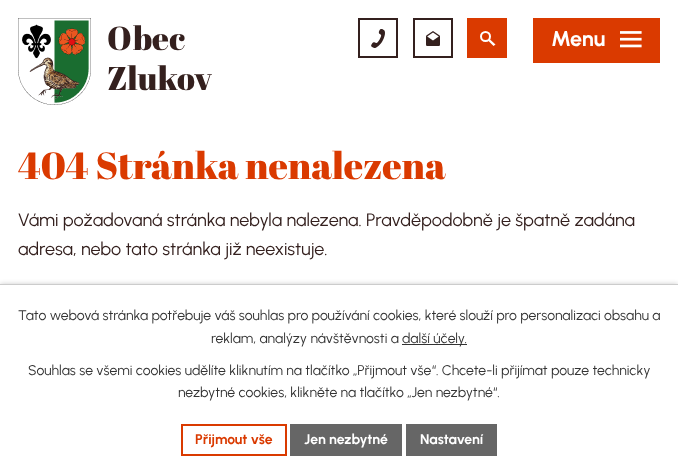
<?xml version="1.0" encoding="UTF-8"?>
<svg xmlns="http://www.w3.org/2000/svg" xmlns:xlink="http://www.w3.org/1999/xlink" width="678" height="475">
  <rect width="100%" height="100%" fill="#ffffff" />
  <image x="18" y="18" width="73" height="87" xlink:href="image1.png" />
  <rect x="359" y="19" width="38" height="38" fill="none" stroke="#34201e" stroke-width="2" />
  <image x="371" y="29" width="14" height="19" xlink:href="image2.png" />
  <rect x="414" y="19" width="38" height="38" fill="none" stroke="#34201e" stroke-width="2" />
  <image x="426" y="31" width="14" height="15" xlink:href="image3.png" />
  <rect x="467" y="18" width="40" height="40" fill="#da3a00" />
  <circle cx="485.5" cy="36.5" r="4.5" fill="none" stroke="#ffffff" stroke-width="2" />
  <path d="M 489.5 39 l 6 5.5 l -2 1.5 l -5.5 -5.5 z" fill="#ffffff" />
  <rect x="533" y="18" width="127" height="45" fill="#da3a00" />
  <image x="620" y="31" width="22" height="17" xlink:href="image4.png" />
  <rect y="284" width="678" height="191" fill="#000000" fill-opacity="0.2" filter="blur(2.5px)" />
  <rect y="285" width="678" height="190" fill="#ffffff" />
  <rect y="284" width="678" height="1" fill="#cccccc" />
  <rect x="402" y="344" width="65" height="1" fill="#333333" />
  <rect x="182" y="425" width="104" height="30" fill="none" stroke="#da3a00" stroke-width="2" />
  <rect x="290" y="424" width="112" height="32" fill="#666666" />
  <rect x="406" y="424" width="91" height="32" fill="#666666" />
  <text x="107" y="50" style="font-family: Abril Fatface; font-size: 33px; fill: #34201e">Obec</text>
  <text x="107" y="90" style="font-family: Abril Fatface; font-size: 33px; fill: #34201e">Zlukov</text>
  <text x="551" y="46" style="font-family: Urbanist; font-size: 21.5px; font-weight: bold; fill: #ffffff">Menu</text>
  <text x="18" y="179" style="font-family: Abril Fatface; font-size: 37.75px; fill: #da3a00">404 Stránka nenalezena</text>
  <text x="18" y="226" style="font-family: Urbanist; font-size: 18px; fill: #34201e">Vámi požadovaná stránka nebyla nalezena. Pravděpodobně je špatně zadána</text>
  <text x="18" y="255" style="font-family: Urbanist; font-size: 18px; fill: #34201e">adresa, nebo tato stránka již neexistuje.</text>
  <text x="18" y="320" style="font-family: Urbanist; font-size: 14px; fill: #333333">Tato webová stránka potřebuje váš souhlas pro používání cookies, které slouží pro personalizaci obsahu a</text>
  <text x="211" y="343" style="font-family: Urbanist; font-size: 14px; fill: #333333">reklam, analýzy návštěvnosti a</text>
  <text x="402" y="343" style="font-family: Urbanist; font-size: 14px; fill: #333333">další účely.</text>
  <text x="28" y="375" style="font-family: Urbanist; font-size: 14px; fill: #333333">Souhlas se všemi cookies udělíte kliknutím na tlačítko „Přijmout vše“. Chcete-li přijímat pouze technicky</text>
  <text x="178" y="397" style="font-family: Urbanist; font-size: 14px; fill: #333333">nezbytné cookies, klikněte na tlačítko „Jen nezbytné“.</text>
  <text x="195" y="444" style="font-family: Urbanist; font-size: 14px; font-weight: bold; fill: #da3a00">Přijmout vše</text>
  <text x="304" y="444" style="font-family: Urbanist; font-size: 14px; font-weight: bold; fill: #ffffff">Jen nezbytné</text>
  <text x="420" y="444" style="font-family: Urbanist; font-size: 14px; font-weight: bold; fill: #ffffff">Nastavení</text>
</svg>
